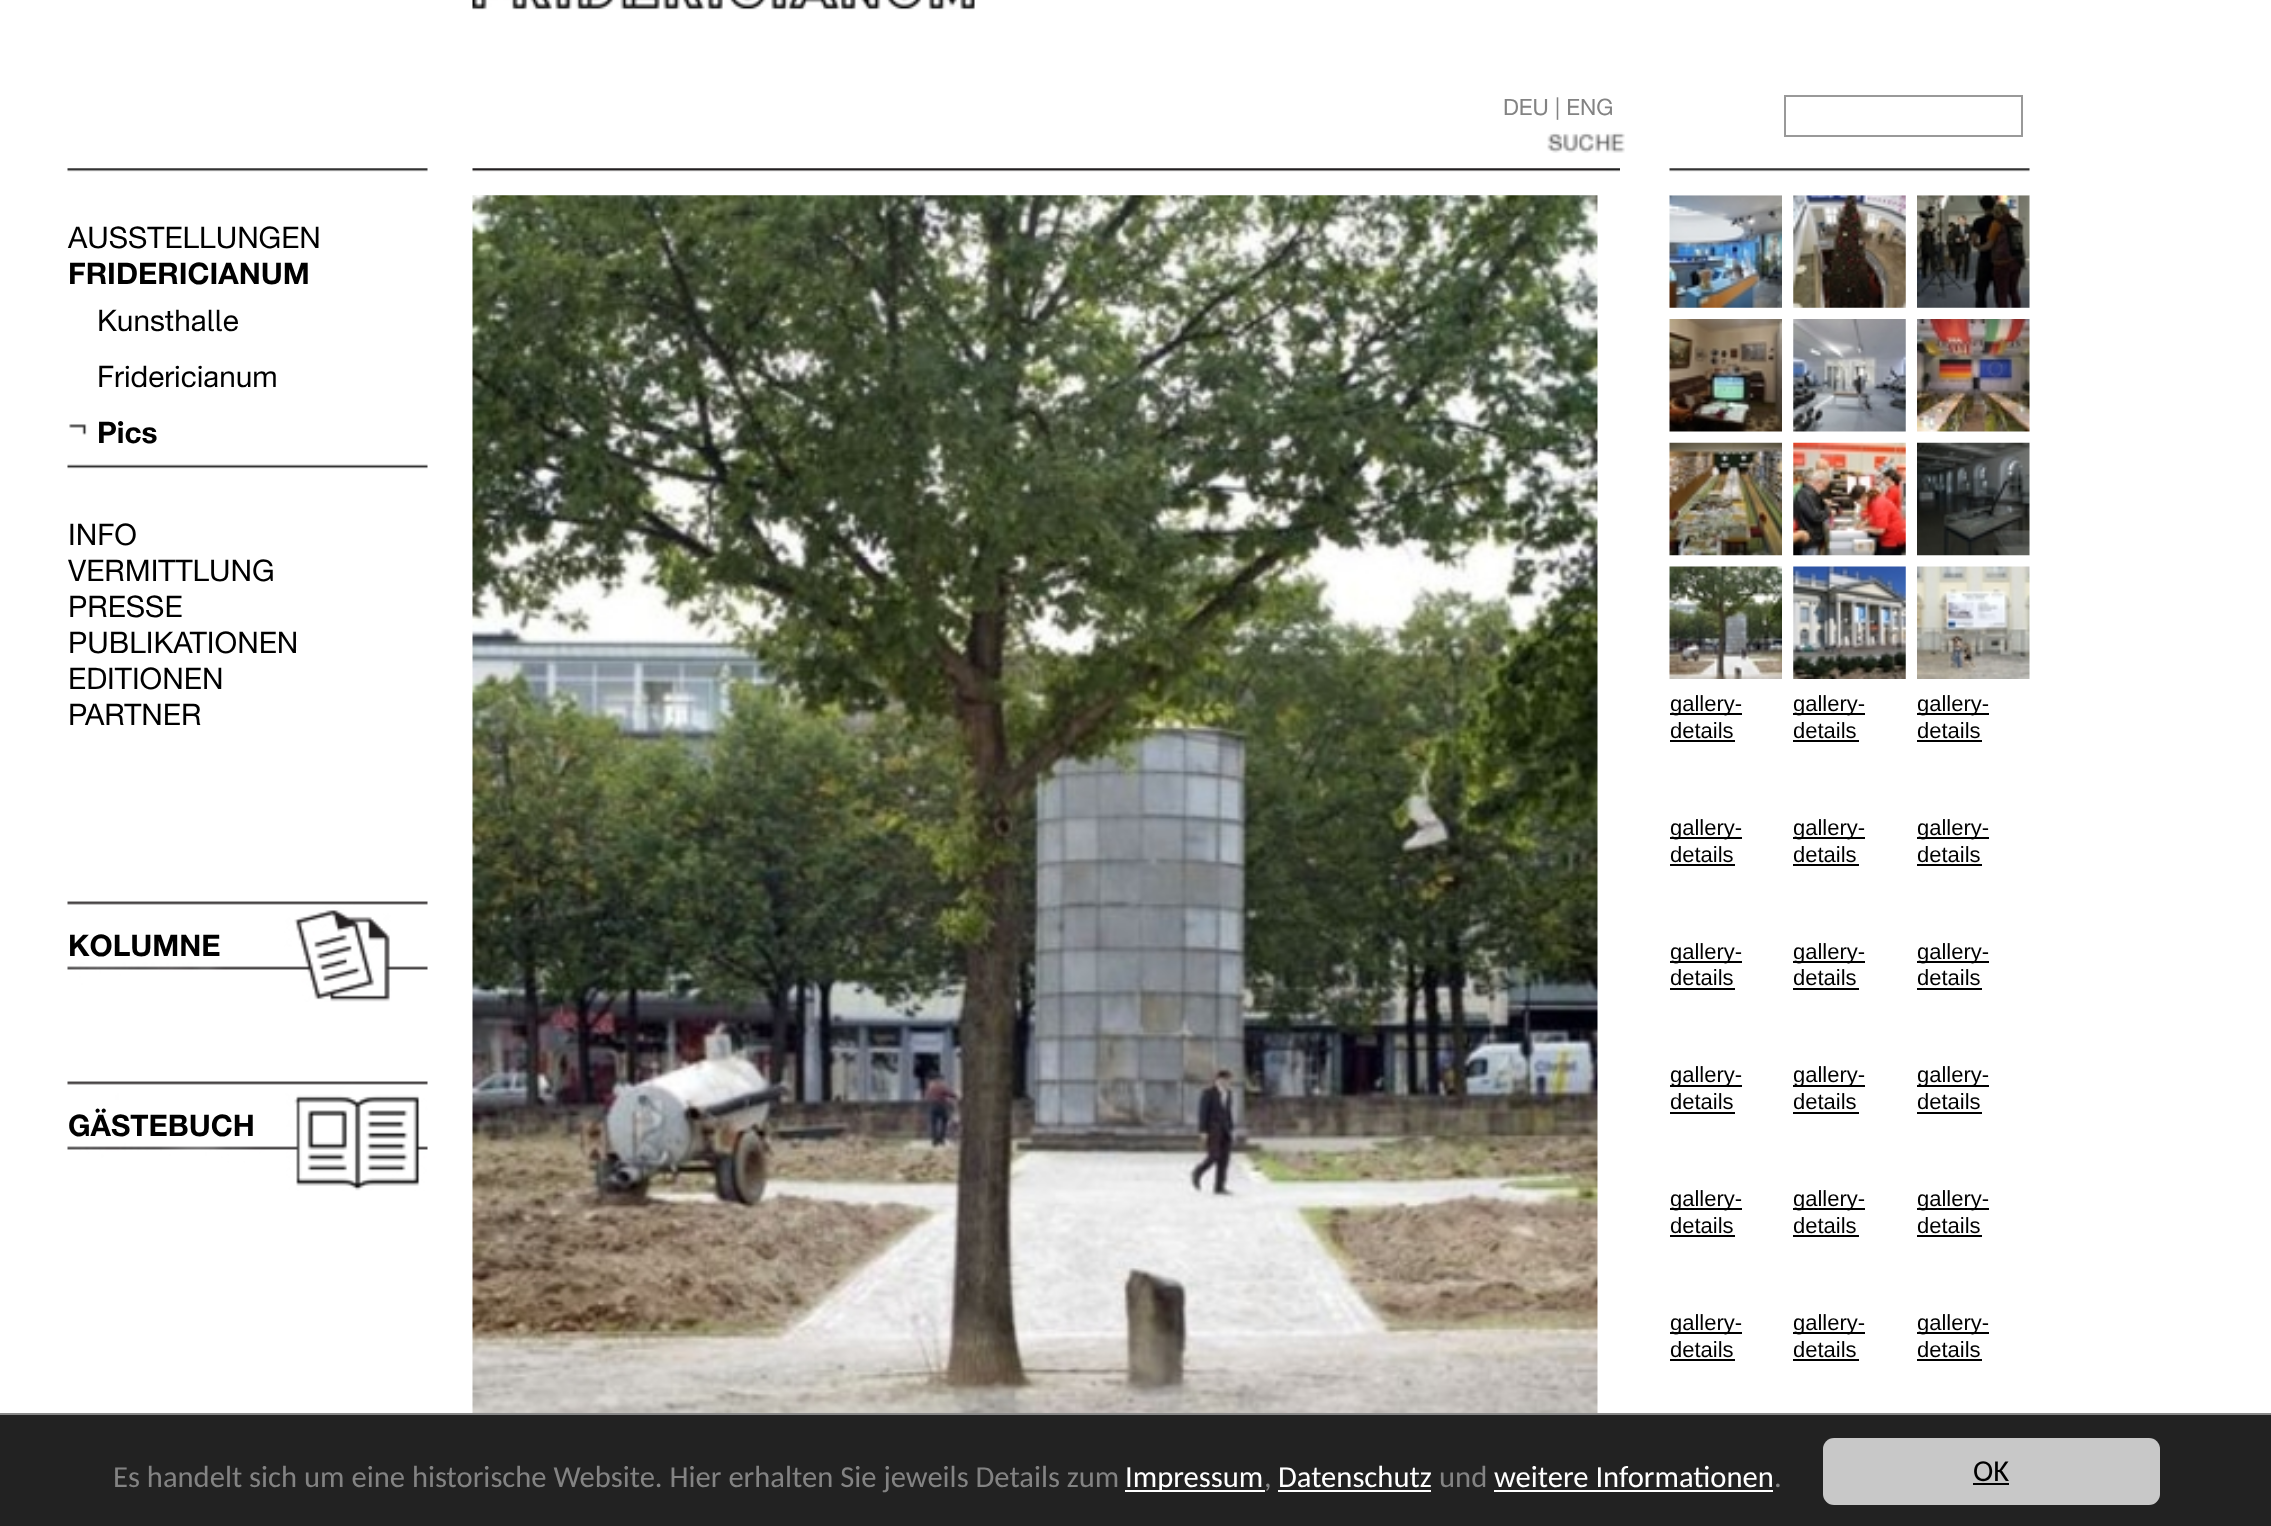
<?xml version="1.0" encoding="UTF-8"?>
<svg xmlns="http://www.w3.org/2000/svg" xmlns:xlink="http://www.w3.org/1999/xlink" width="2271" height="1526">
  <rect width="100%" height="100%" fill="#ffffff" />
  <image x="472" y="0" width="503" height="10" xlink:href="image1.png" />
  <image x="1547" y="132" width="78" height="21" xlink:href="image2.png" />
  <rect x="1785" y="96" width="237" height="40" fill="none" stroke="#999999" stroke-width="2" />
  <image x="67" y="168" width="361" height="4" xlink:href="image3.png" />
  <image x="69" y="424" width="18" height="11" xlink:href="image4.png" />
  <image x="67" y="464" width="361" height="5" xlink:href="image5.png" />
  <image x="67" y="901" width="361" height="101" xlink:href="image6.png" />
  <image x="67" y="1081" width="361" height="110" xlink:href="image7.png" />
  <image x="472" y="168" width="1148" height="4" xlink:href="image8.png" />
  <image x="472" y="195" width="1126" height="1218" xlink:href="image9.png" />
  <image x="1669" y="195" width="113" height="113" xlink:href="image11.png" />
  <image x="1793" y="195" width="113" height="113" xlink:href="image12.png" />
  <image x="1917" y="195" width="113" height="113" xlink:href="image13.png" />
  <image x="1669" y="168" width="361" height="28" xlink:href="image10.png" />
  <image x="1669" y="319" width="113" height="113" xlink:href="image14.png" />
  <image x="1793" y="319" width="113" height="113" xlink:href="image15.png" />
  <image x="1917" y="319" width="113" height="113" xlink:href="image16.png" />
  <image x="1669" y="442" width="113" height="114" xlink:href="image17.png" />
  <image x="1793" y="442" width="113" height="114" xlink:href="image18.png" />
  <image x="1917" y="442" width="113" height="114" xlink:href="image19.png" />
  <image x="1669" y="566" width="113" height="113" xlink:href="image20.png" />
  <image x="1793" y="566" width="113" height="113" xlink:href="image21.png" />
  <image x="1917" y="566" width="113" height="113" xlink:href="image22.png" />
  <rect x="1670" y="713" width="72" height="2" fill="#000000" />
  <rect x="1670" y="740" width="65" height="2" fill="#000000" />
  <rect x="1793" y="713" width="72" height="2" fill="#000000" />
  <rect x="1793" y="740" width="66" height="2" fill="#000000" />
  <rect x="1917" y="713" width="72" height="2" fill="#000000" />
  <rect x="1917" y="740" width="65" height="2" fill="#000000" />
  <rect x="1670" y="837" width="72" height="2" fill="#000000" />
  <rect x="1670" y="864" width="65" height="2" fill="#000000" />
  <rect x="1793" y="837" width="72" height="2" fill="#000000" />
  <rect x="1793" y="864" width="66" height="2" fill="#000000" />
  <rect x="1917" y="837" width="72" height="2" fill="#000000" />
  <rect x="1917" y="864" width="65" height="2" fill="#000000" />
  <rect x="1670" y="961" width="72" height="2" fill="#000000" />
  <rect x="1670" y="988" width="65" height="2" fill="#000000" />
  <rect x="1793" y="961" width="72" height="2" fill="#000000" />
  <rect x="1793" y="988" width="66" height="2" fill="#000000" />
  <rect x="1917" y="961" width="72" height="2" fill="#000000" />
  <rect x="1917" y="988" width="65" height="2" fill="#000000" />
  <rect x="1670" y="1085" width="72" height="2" fill="#000000" />
  <rect x="1670" y="1112" width="65" height="2" fill="#000000" />
  <rect x="1793" y="1085" width="72" height="2" fill="#000000" />
  <rect x="1793" y="1112" width="66" height="2" fill="#000000" />
  <rect x="1917" y="1085" width="72" height="2" fill="#000000" />
  <rect x="1917" y="1112" width="65" height="2" fill="#000000" />
  <rect x="1670" y="1208" width="72" height="2" fill="#000000" />
  <rect x="1670" y="1235" width="65" height="2" fill="#000000" />
  <rect x="1793" y="1208" width="72" height="2" fill="#000000" />
  <rect x="1793" y="1235" width="66" height="2" fill="#000000" />
  <rect x="1917" y="1208" width="72" height="2" fill="#000000" />
  <rect x="1917" y="1235" width="65" height="2" fill="#000000" />
  <rect x="1670" y="1332" width="72" height="2" fill="#000000" />
  <rect x="1670" y="1359" width="65" height="2" fill="#000000" />
  <rect x="1793" y="1332" width="72" height="2" fill="#000000" />
  <rect x="1793" y="1359" width="66" height="2" fill="#000000" />
  <rect x="1917" y="1332" width="72" height="2" fill="#000000" />
  <rect x="1917" y="1359" width="65" height="2" fill="#000000" />
  <rect y="1415" width="2271" height="111" fill="#222222" />
  <rect y="1413" width="2271" height="2" fill="#888888" />
  <rect x="1125" y="1490" width="140" height="2" fill="#ffffff" />
  <rect x="1278" y="1490" width="153" height="2" fill="#ffffff" />
  <rect x="1494" y="1490" width="279" height="2" fill="#ffffff" />
  <rect x="1823" y="1438" width="337" height="67" rx="11" fill="#c8c8c8" />
  <rect x="1973" y="1483" width="36" height="2" fill="#000000" />
  <text x="1503" y="115" style="font-family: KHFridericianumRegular; font-size: 22.5px; fill: #838383">DEU | ENG</text>
  <text x="68" y="248" style="font-family: KHFridericianumRegular; font-size: 29.75px; fill: #000000">AUSSTELLUNGEN</text>
  <text x="68" y="284" style="font-family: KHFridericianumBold; font-size: 29.75px; font-weight: bold; fill: #000000">FRIDERICIANUM</text>
  <text x="97" y="331" style="font-family: KHFridericianumRegular; font-size: 29.75px; fill: #000000">Kunsthalle</text>
  <text x="97" y="387" style="font-family: KHFridericianumRegular; font-size: 29.75px; fill: #000000">Fridericianum</text>
  <text x="97" y="443" style="font-family: KHFridericianumBold; font-size: 29.75px; font-weight: bold; fill: #000000">Pics</text>
  <text x="68" y="545" style="font-family: KHFridericianumRegular; font-size: 29.75px; fill: #000000">INFO</text>
  <text x="68" y="581" style="font-family: KHFridericianumRegular; font-size: 29.75px; fill: #000000">VERMITTLUNG</text>
  <text x="68" y="617" style="font-family: KHFridericianumRegular; font-size: 29.75px; fill: #000000">PRESSE</text>
  <text x="68" y="653" style="font-family: KHFridericianumRegular; font-size: 29.75px; fill: #000000">PUBLIKATIONEN</text>
  <text x="68" y="689" style="font-family: KHFridericianumRegular; font-size: 29.75px; fill: #000000">EDITIONEN</text>
  <text x="68" y="725" style="font-family: KHFridericianumRegular; font-size: 29.75px; fill: #000000">PARTNER</text>
  <text x="68" y="956" style="font-family: KHFridericianumBold; font-size: 29.75px; font-weight: bold; fill: #000000">KOLUMNE</text>
  <text x="68" y="1136" style="font-family: KHFridericianumBold; font-size: 29.75px; font-weight: bold; fill: #000000">GÄSTEBUCH</text>
  <text x="1670" y="711" style="font-family: Liberation Sans; font-size: 22px; fill: #000000">gallery-</text>
  <text x="1670" y="738" style="font-family: Liberation Sans; font-size: 22px; fill: #000000">details</text>
  <text x="1793" y="711" style="font-family: Liberation Sans; font-size: 22px; fill: #000000">gallery-</text>
  <text x="1793" y="738" style="font-family: Liberation Sans; font-size: 22px; fill: #000000">details</text>
  <text x="1917" y="711" style="font-family: Liberation Sans; font-size: 22px; fill: #000000">gallery-</text>
  <text x="1917" y="738" style="font-family: Liberation Sans; font-size: 22px; fill: #000000">details</text>
  <text x="1670" y="835" style="font-family: Liberation Sans; font-size: 22px; fill: #000000">gallery-</text>
  <text x="1670" y="862" style="font-family: Liberation Sans; font-size: 22px; fill: #000000">details</text>
  <text x="1793" y="835" style="font-family: Liberation Sans; font-size: 22px; fill: #000000">gallery-</text>
  <text x="1793" y="862" style="font-family: Liberation Sans; font-size: 22px; fill: #000000">details</text>
  <text x="1917" y="835" style="font-family: Liberation Sans; font-size: 22px; fill: #000000">gallery-</text>
  <text x="1917" y="862" style="font-family: Liberation Sans; font-size: 22px; fill: #000000">details</text>
  <text x="1670" y="959" style="font-family: Liberation Sans; font-size: 22px; fill: #000000">gallery-</text>
  <text x="1670" y="985" style="font-family: Liberation Sans; font-size: 22px; fill: #000000">details</text>
  <text x="1793" y="959" style="font-family: Liberation Sans; font-size: 22px; fill: #000000">gallery-</text>
  <text x="1793" y="985" style="font-family: Liberation Sans; font-size: 22px; fill: #000000">details</text>
  <text x="1917" y="959" style="font-family: Liberation Sans; font-size: 22px; fill: #000000">gallery-</text>
  <text x="1917" y="985" style="font-family: Liberation Sans; font-size: 22px; fill: #000000">details</text>
  <text x="1670" y="1082" style="font-family: Liberation Sans; font-size: 22px; fill: #000000">gallery-</text>
  <text x="1670" y="1109" style="font-family: Liberation Sans; font-size: 22px; fill: #000000">details</text>
  <text x="1793" y="1082" style="font-family: Liberation Sans; font-size: 22px; fill: #000000">gallery-</text>
  <text x="1793" y="1109" style="font-family: Liberation Sans; font-size: 22px; fill: #000000">details</text>
  <text x="1917" y="1082" style="font-family: Liberation Sans; font-size: 22px; fill: #000000">gallery-</text>
  <text x="1917" y="1109" style="font-family: Liberation Sans; font-size: 22px; fill: #000000">details</text>
  <text x="1670" y="1206" style="font-family: Liberation Sans; font-size: 22px; fill: #000000">gallery-</text>
  <text x="1670" y="1233" style="font-family: Liberation Sans; font-size: 22px; fill: #000000">details</text>
  <text x="1793" y="1206" style="font-family: Liberation Sans; font-size: 22px; fill: #000000">gallery-</text>
  <text x="1793" y="1233" style="font-family: Liberation Sans; font-size: 22px; fill: #000000">details</text>
  <text x="1917" y="1206" style="font-family: Liberation Sans; font-size: 22px; fill: #000000">gallery-</text>
  <text x="1917" y="1233" style="font-family: Liberation Sans; font-size: 22px; fill: #000000">details</text>
  <text x="1670" y="1330" style="font-family: Liberation Sans; font-size: 22px; fill: #000000">gallery-</text>
  <text x="1670" y="1357" style="font-family: Liberation Sans; font-size: 22px; fill: #000000">details</text>
  <text x="1793" y="1330" style="font-family: Liberation Sans; font-size: 22px; fill: #000000">gallery-</text>
  <text x="1793" y="1357" style="font-family: Liberation Sans; font-size: 22px; fill: #000000">details</text>
  <text x="1917" y="1330" style="font-family: Liberation Sans; font-size: 22px; fill: #000000">gallery-</text>
  <text x="1917" y="1357" style="font-family: Liberation Sans; font-size: 22px; fill: #000000">details</text>
  <text x="113" y="1487" style="font-family: Carlito; font-size: 30.6px; fill: #838383">Es handelt sich um eine historische Website. Hier erhalten Sie jeweils Details zum</text>
  <text x="1125" y="1487" style="font-family: Carlito; font-size: 30.6px; fill: #ffffff">Impressum</text>
  <text x="1264" y="1487" style="font-family: Carlito; font-size: 30.6px; fill: #838383">,</text>
  <text x="1278" y="1487" style="font-family: Carlito; font-size: 30.6px; fill: #ffffff">Datenschutz</text>
  <text x="1439" y="1487" style="font-family: Carlito; font-size: 30.6px; fill: #838383">und</text>
  <text x="1494" y="1487" style="font-family: Carlito; font-size: 30.6px; fill: #ffffff">weitere Informationen</text>
  <text x="1774" y="1487" style="font-family: Carlito; font-size: 30.6px; fill: #838383">.</text>
  <text x="1973" y="1481" style="font-family: Carlito; font-size: 30.6px; fill: #000000">OK</text>
</svg>
